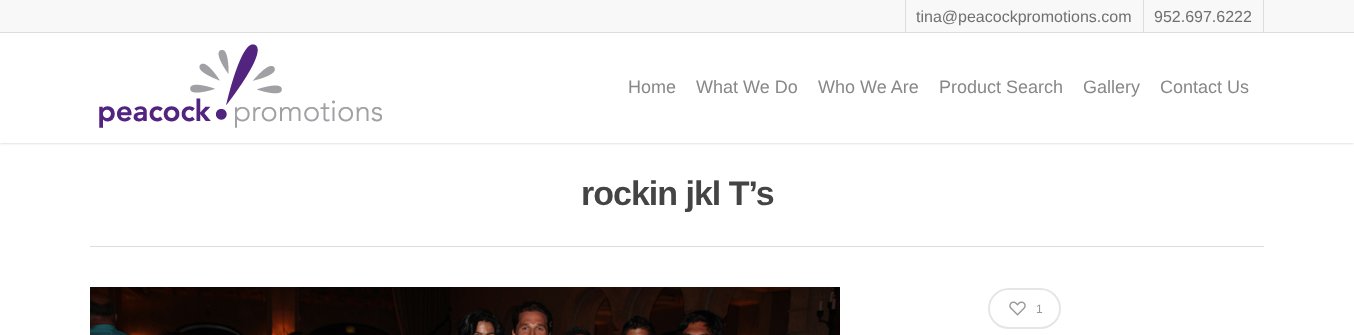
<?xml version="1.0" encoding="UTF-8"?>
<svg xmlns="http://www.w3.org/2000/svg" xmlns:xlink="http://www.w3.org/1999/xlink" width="1354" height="335">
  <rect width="100%" height="100%" fill="#ffffff" />
  <rect y="32" width="1354" height="111" fill="#000000" fill-opacity="0.22" filter="blur(1.5px)" />
  <rect width="1354" height="32" fill="#f8f8f8" />
  <rect y="32" width="1354" height="1" fill="#dddddd" />
  <rect x="905" width="1" height="33" fill="#dddddd" />
  <rect x="1263" width="1" height="33" fill="#dddddd" />
  <rect x="1143" width="1" height="33" fill="#dddddd" />
  <rect y="33" width="1354" height="110" fill="#ffffff" />
  <image x="99" y="44" width="283" height="84" xlink:href="image1.png" />
  <rect x="90" y="246" width="1174" height="1" fill="#dddddd" />
  <image x="90" y="287" width="750" height="48" xlink:href="image2.png" />
  <rect x="989" y="289" width="71" height="39" rx="19.5" fill="none" stroke="#e6e6e6" stroke-width="2" />
  <image x="1009" y="301" width="17" height="15" xlink:href="image3.png" />
  <text x="916" y="22" style="font-family: Liberation Sans; font-size: 16px; fill: #707070">tina@peacockpromotions.com</text>
  <text x="1154" y="22" style="font-family: Liberation Sans; font-size: 16px; fill: #707070">952.697.6222</text>
  <text x="628" y="93" style="font-family: Liberation Sans; font-size: 18px; fill: #888888">Home</text>
  <text x="696" y="93" style="font-family: Liberation Sans; font-size: 18px; fill: #888888">What We Do</text>
  <text x="818" y="93" style="font-family: Liberation Sans; font-size: 18px; fill: #888888">Who We Are</text>
  <text x="939" y="93" style="font-family: Liberation Sans; font-size: 18px; fill: #888888">Product Search</text>
  <text x="1083" y="93" style="font-family: Liberation Sans; font-size: 18px; fill: #888888">Gallery</text>
  <text x="1160" y="93" style="font-family: Liberation Sans; font-size: 18px; fill: #888888">Contact Us</text>
  <text x="581" y="205" style="font-family: Liberation Sans; font-size: 34px; font-weight: bold; letter-spacing: -1px; fill: #444444">rockin jkl T’s</text>
  <text x="1036" y="313" style="font-family: Liberation Sans; font-size: 12px; fill: #999999">1</text>
</svg>
